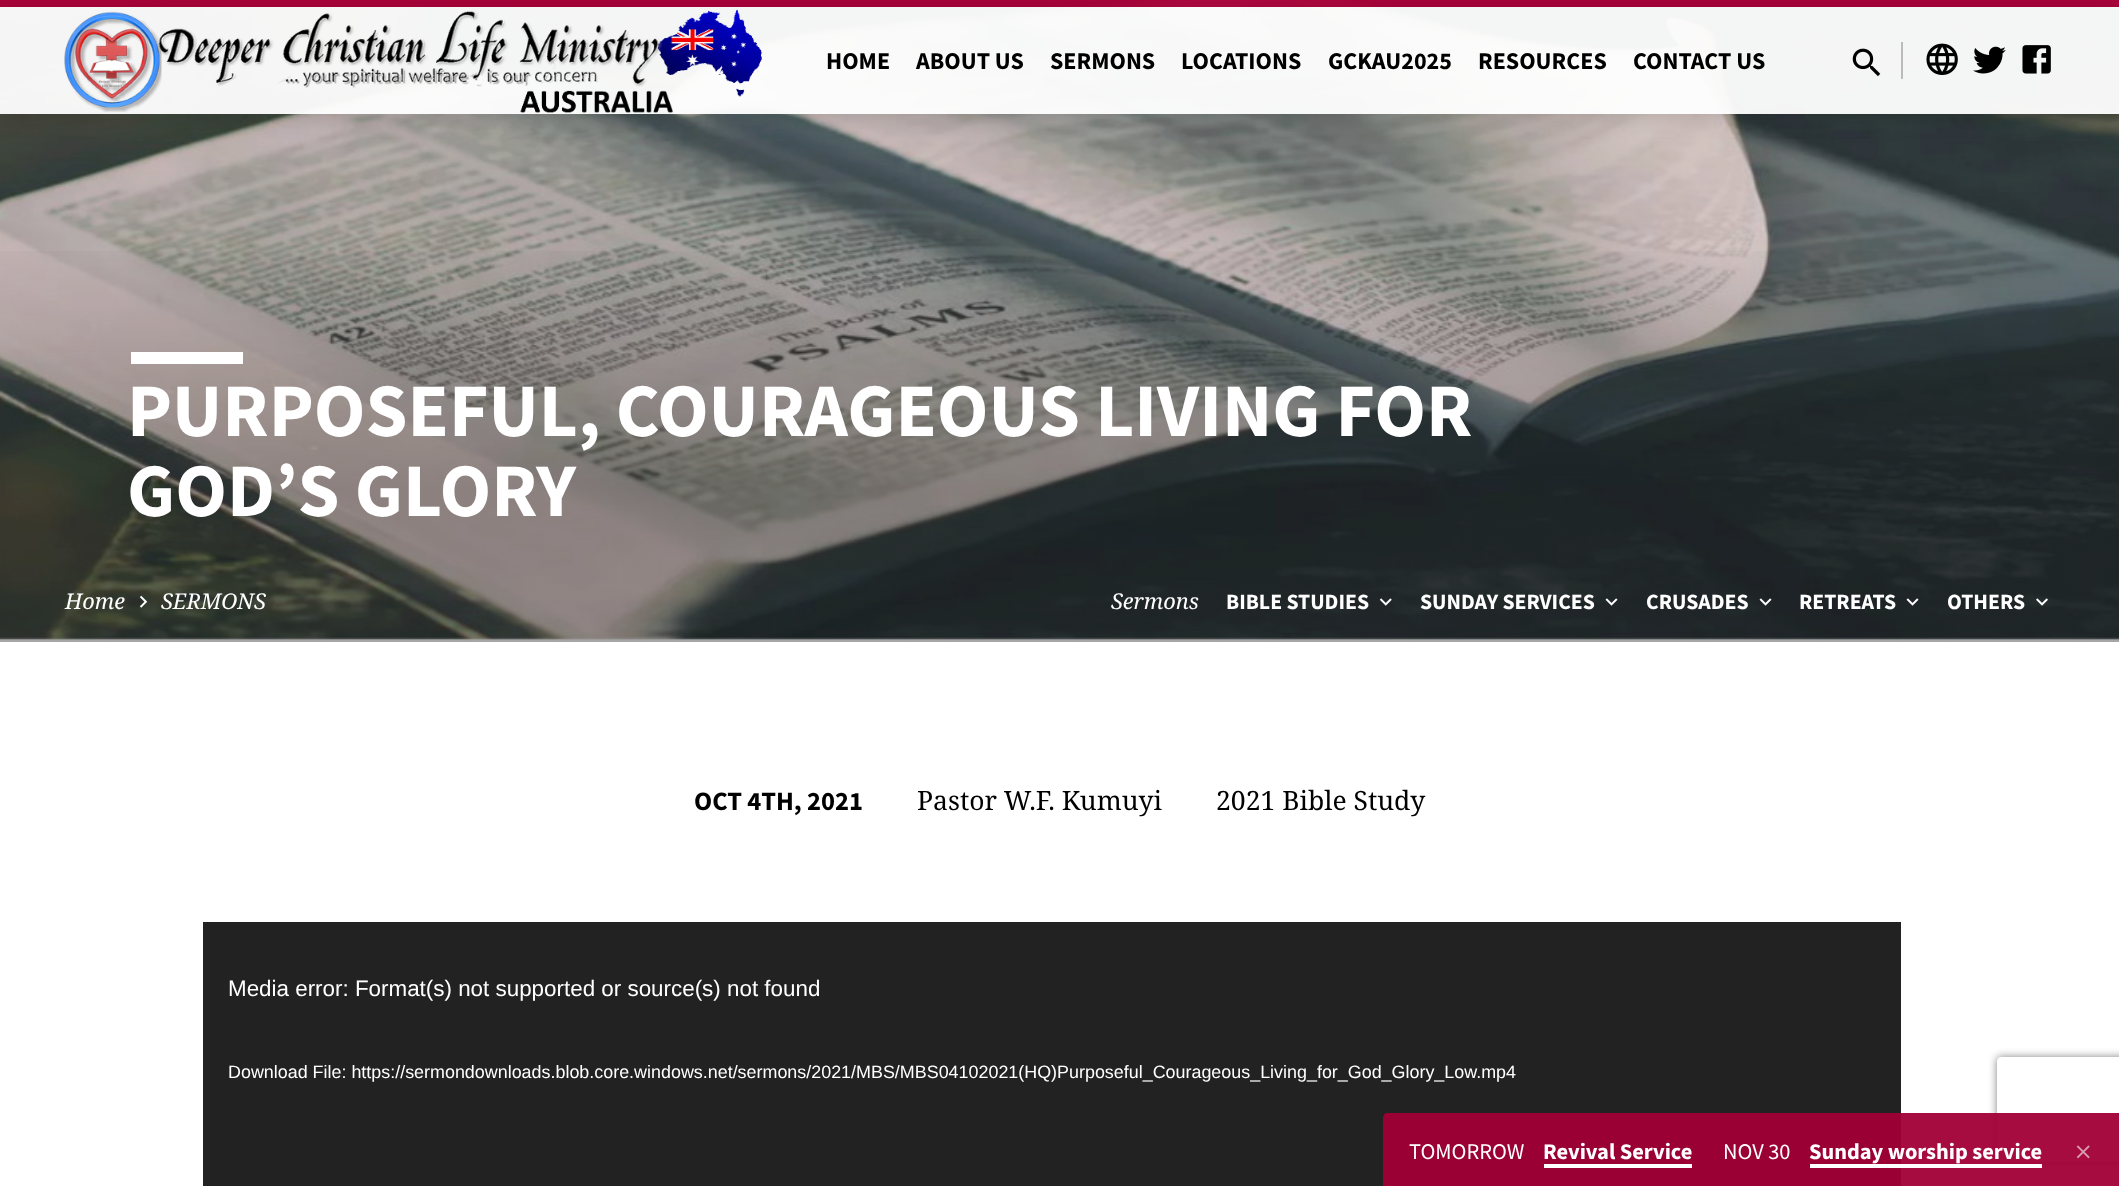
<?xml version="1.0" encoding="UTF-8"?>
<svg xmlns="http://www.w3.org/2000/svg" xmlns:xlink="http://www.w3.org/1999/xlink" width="2119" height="1186">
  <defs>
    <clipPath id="clip1"><path d="M 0 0 h 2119 v 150 h -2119 z m 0 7 h 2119 v 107 h -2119 z" clip-rule="evenodd" /></clipPath>
    <linearGradient id="g1" gradientUnits="userSpaceOnUse" x1="1060" y1="0" x2="1060" y2="642"><stop offset="0" stop-color="#000000" stop-opacity="0" /><stop offset="0.36" stop-color="#000000" stop-opacity="0" /><stop offset="0.76" stop-color="#000000" stop-opacity="0.28" /><stop offset="1" stop-color="#000000" stop-opacity="0.28" /></linearGradient>
    <clipPath id="clip2"><path d="M 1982 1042 h 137 v 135 h -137 z m 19 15 h 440 c 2 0 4 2 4 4 v 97 c 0 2 -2 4 -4 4 h -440 c -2 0 -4 -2 -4 -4 v -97 c 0 -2 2 -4 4 -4 z" clip-rule="evenodd" /></clipPath>
  </defs>
  <rect width="100%" height="100%" fill="#ffffff" />
  <image x="0" y="0" width="2119" height="642" xlink:href="image6.png" />
  <rect width="2119" height="7" fill="#af003a" fill-opacity="0.95" />
  <g clip-path="url(#clip1)">
    <rect y="11" width="2119" height="106" fill="#000000" fill-opacity="0.14" filter="blur(10.5px)" />
  </g>
  <rect y="7" width="2119" height="107" fill="#ffffff" fill-opacity="0.95" />
  <image x="64" y="9" width="698" height="104" xlink:href="image1.png" />
  <image x="1852" y="48" width="29" height="29" xlink:href="image2.png" />
  <rect x="1901" y="42" width="2" height="37" fill="#bbbbbb" />
  <image x="1926" y="43" width="32" height="32" xlink:href="image3.png" />
  <image x="1973" y="46" width="33" height="28" xlink:href="image4.png" />
  <image x="2022" y="45" width="29" height="29" xlink:href="image5.png" />
  <rect y="251" width="2119" height="391" fill="url(#g1)" />
  <rect x="131" y="352" width="112" height="12" fill="#ffffff" />
  <image x="139" y="595" width="9" height="13" xlink:href="image7.png" />
  <image x="1379" y="598" width="13" height="8" xlink:href="image8.png" />
  <image x="1605" y="598" width="13" height="8" xlink:href="image9.png" />
  <image x="1759" y="598" width="13" height="8" xlink:href="image10.png" />
  <image x="1906" y="598" width="13" height="8" xlink:href="image11.png" />
  <image x="2036" y="598" width="12" height="8" xlink:href="image12.png" />
  <rect x="203" y="922" width="1698" height="264" fill="#222222" />
  <g clip-path="url(#clip2)">
    <rect x="1997" y="1057" width="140" height="105" rx="4" fill="#808080" filter="blur(4.5px)" />
  </g>
  <path d="M 1387 1113 h 732 v 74 h -736 v -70 c 0 -2 2 -4 4 -4 z" fill="#af003a" fill-opacity="0.95" />
  <rect x="1383" y="1113" width="736" height="73" fill="#000000" fill-opacity="0.07" />
  <rect x="1544" y="1164" width="148" height="4" fill="#ffffff" />
  <rect x="1810" y="1164" width="232" height="4" fill="#ffffff" />
  <image x="2076" y="1145" width="14" height="14" xlink:href="image13.png" />
  <text x="826" y="69" style="font-family: Source Sans Pro; font-size: 24px; font-weight: bold; fill: #000000">HOME</text>
  <text x="916" y="69" style="font-family: Source Sans Pro; font-size: 24px; font-weight: bold; fill: #000000">ABOUT US</text>
  <text x="1050" y="69" style="font-family: Source Sans Pro; font-size: 24px; font-weight: bold; fill: #000000">SERMONS</text>
  <text x="1181" y="69" style="font-family: Source Sans Pro; font-size: 24px; font-weight: bold; fill: #000000">LOCATIONS</text>
  <text x="1328" y="69" style="font-family: Source Sans Pro; font-size: 24px; font-weight: bold; fill: #000000">GCKAU2025</text>
  <text x="1478" y="69" style="font-family: Source Sans Pro; font-size: 24px; font-weight: bold; fill: #000000">RESOURCES</text>
  <text x="1633" y="69" style="font-family: Source Sans Pro; font-size: 24px; font-weight: bold; fill: #000000">CONTACT US</text>
  <text x="127" y="436" style="font-family: Source Sans Pro; font-size: 75.6px; font-weight: bold; fill: #ffffff">PURPOSEFUL, COURAGEOUS LIVING FOR</text>
  <text x="127" y="516" style="font-family: Source Sans Pro; font-size: 75.6px; font-weight: bold; fill: #ffffff">GOD’S GLORY</text>
  <text x="65" y="609" style="font-family: Noto Serif; font-size: 21.75px; font-style: italic; fill: #ffffff">Home</text>
  <text x="161" y="609" style="font-family: Noto Serif; font-size: 21.75px; font-style: italic; fill: #ffffff">SERMONS</text>
  <text x="1111" y="609" style="font-family: Noto Serif; font-size: 21.75px; font-style: italic; fill: #ffffff">Sermons</text>
  <text x="1226" y="609" style="font-family: Source Sans Pro; font-size: 21.75px; font-weight: bold; fill: #ffffff">BIBLE STUDIES</text>
  <text x="1420" y="609" style="font-family: Source Sans Pro; font-size: 21.75px; font-weight: bold; fill: #ffffff">SUNDAY SERVICES</text>
  <text x="1646" y="609" style="font-family: Source Sans Pro; font-size: 21.75px; font-weight: bold; fill: #ffffff">CRUSADES</text>
  <text x="1799" y="609" style="font-family: Source Sans Pro; font-size: 21.75px; font-weight: bold; fill: #ffffff">RETREATS</text>
  <text x="1947" y="609" style="font-family: Source Sans Pro; font-size: 21.75px; font-weight: bold; fill: #ffffff">OTHERS</text>
  <text x="694" y="810" style="font-family: Source Sans Pro; font-size: 26.5px; font-weight: bold; fill: #000000">OCT 4TH, 2021</text>
  <text x="917" y="810" style="font-family: Noto Serif; font-size: 26.5px; fill: #000000">Pastor W.F. Kumuyi</text>
  <text x="1216" y="810" style="font-family: Noto Serif; font-size: 26.5px; fill: #000000">2021 Bible Study</text>
  <text x="228" y="996" style="font-family: Liberation Sans; font-size: 22.4px; fill: #ffffff">Media error: Format(s) not supported or source(s) not found</text>
  <text x="228" y="1078" style="font-family: Liberation Sans; font-size: 17.92px; fill: #ffffff">Download File: https://sermondownloads.blob.core.windows.net/sermons/2021/MBS/MBS04102021(HQ)Purposeful_Courageous_Living_for_God_Glory_Low.mp4</text>
  <text x="1409" y="1159" style="font-family: Source Sans Pro; font-size: 22.4px; fill: #ffffff">TOMORROW</text>
  <text x="1543" y="1159" style="font-family: Source Sans Pro; font-size: 22.4px; font-weight: bold; fill: #ffffff">Revival Service</text>
  <text x="1723" y="1159" style="font-family: Source Sans Pro; font-size: 22.4px; fill: #ffffff">NOV 30</text>
  <text x="1809" y="1159" style="font-family: Source Sans Pro; font-size: 22.4px; font-weight: bold; fill: #ffffff">Sunday worship service</text>
</svg>
